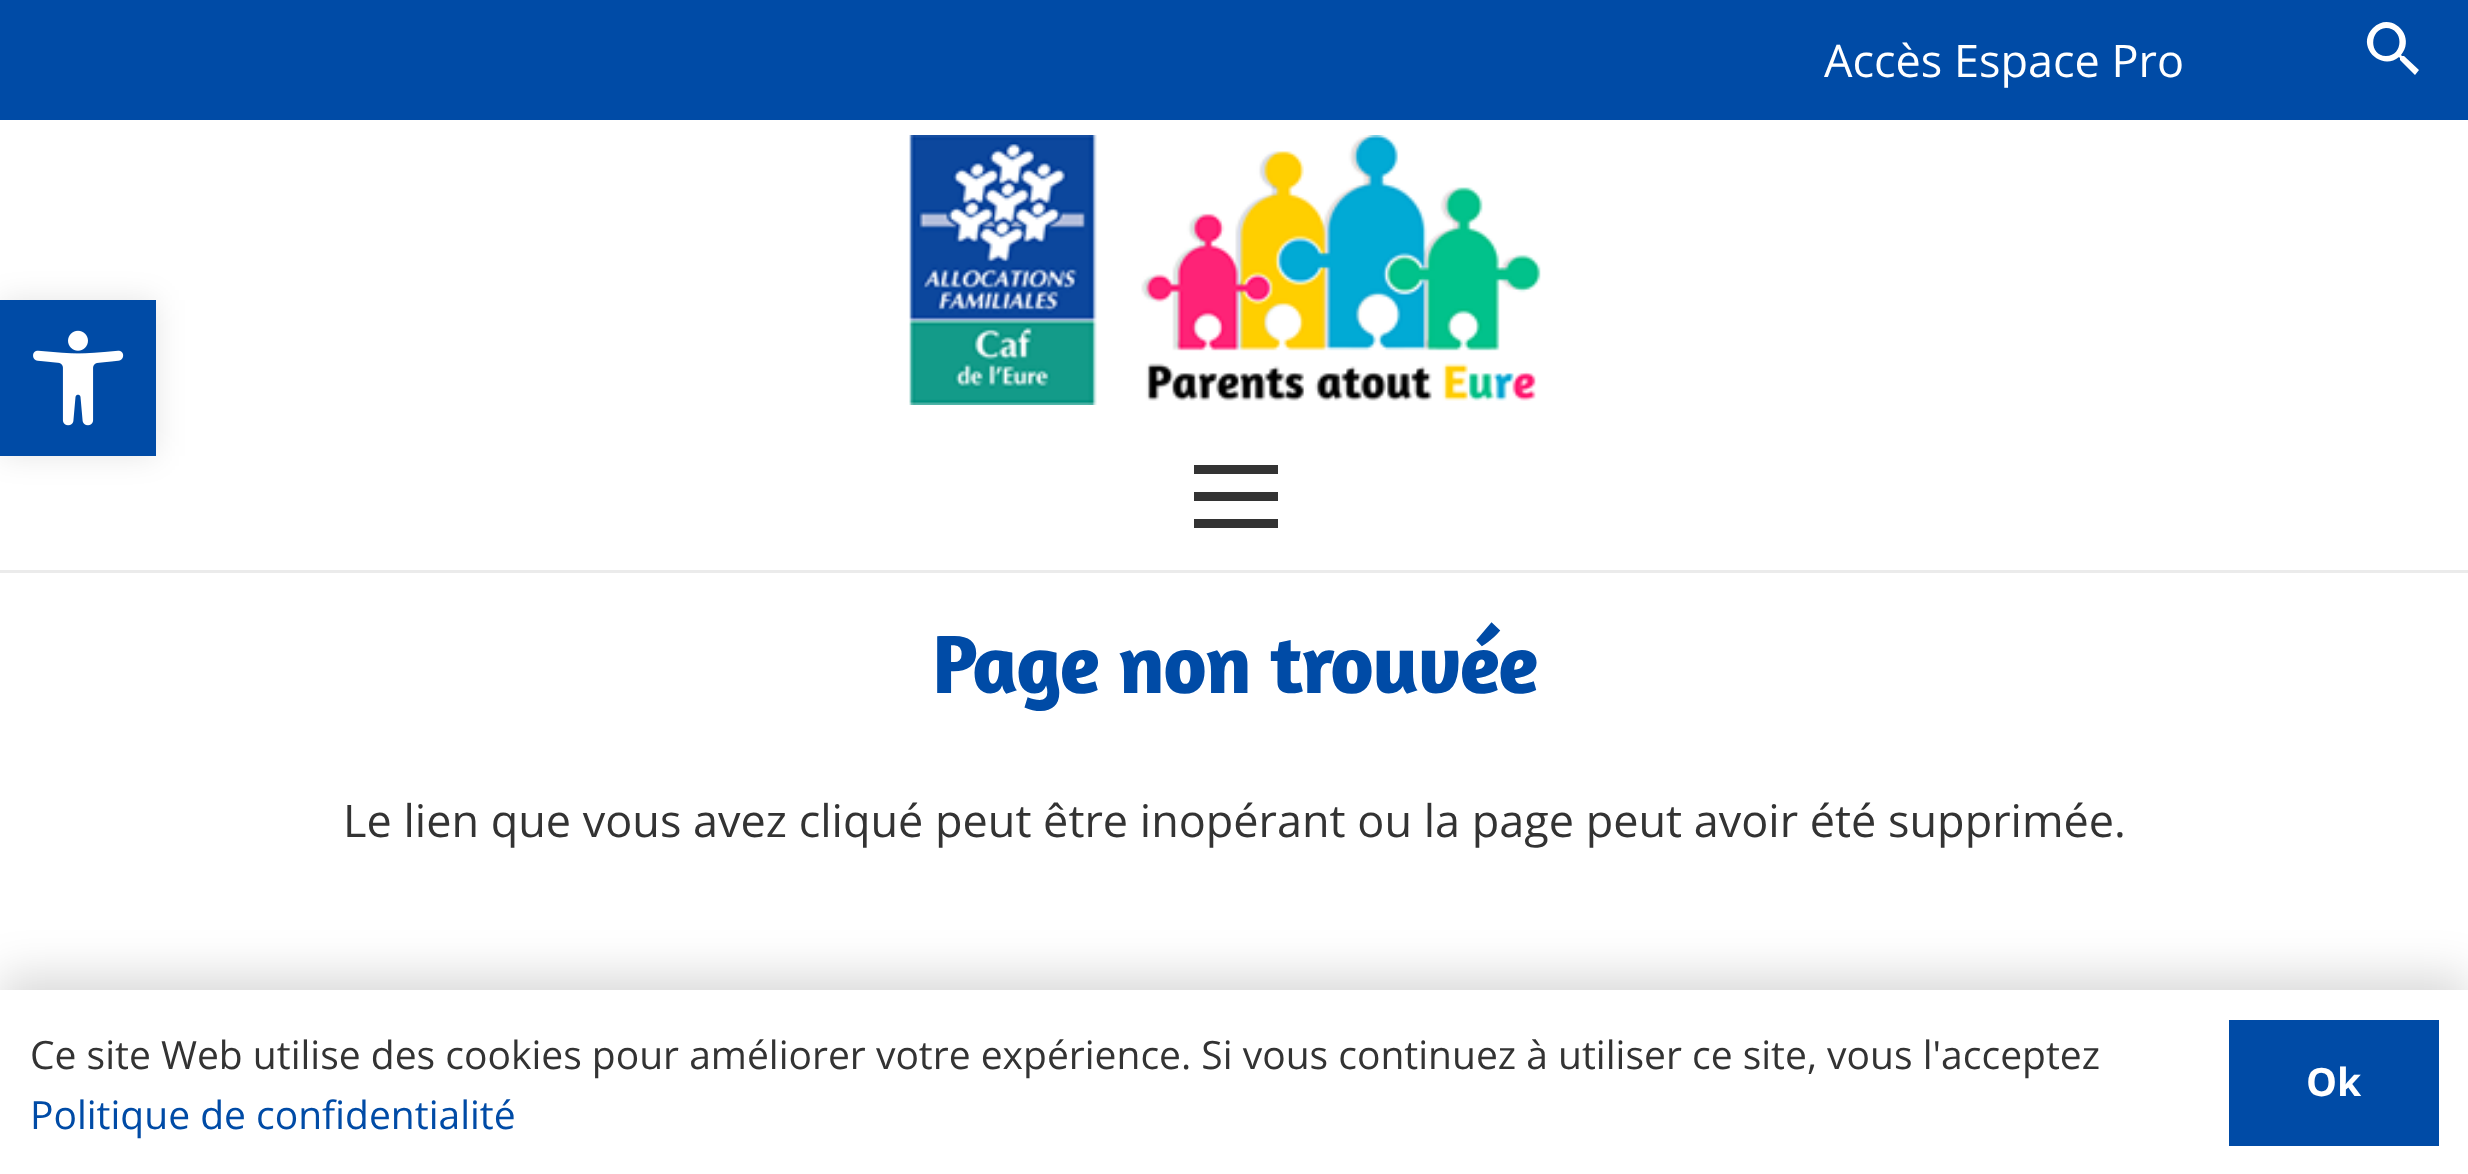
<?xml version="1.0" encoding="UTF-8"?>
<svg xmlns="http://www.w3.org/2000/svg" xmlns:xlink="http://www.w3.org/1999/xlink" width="2468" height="1174">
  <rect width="100%" height="100%" fill="#ffffff" />
  <rect y="300" width="156" height="156" fill="#000000" fill-opacity="0.1" filter="blur(15px)" />
  <rect y="300" width="156" height="156" fill="#004ba6" />
  <image x="33" y="330" width="91" height="96" xlink:href="image1.png" />
  <rect width="2468" height="120" fill="#004ba6" />
  <path d="M 2404 56 h -2 l -1 -1 c 16 -19 -10 -45 -28 -27 c -18 18 8 44 26 29 l 1 1 v 2 l 15 15 l 4 -5 z m -18 0 c -17 0 -17 -27 0 -28 c 18 0 18 28 0 28 z" fill="#ffffff" />
  <image x="909" y="135" width="632" height="270" xlink:href="image2.png" />
  <rect y="570" width="2468" height="3" fill="#ebebeb" />
  <rect x="1194" y="492" width="84" height="9" fill="#333333" />
  <rect x="1194" y="465" width="84" height="9" fill="#333333" />
  <rect x="1194" y="519" width="84" height="9" fill="#333333" />
  <rect y="975" width="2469" height="186" fill="#000000" fill-opacity="0.15" filter="blur(22.5px)" />
  <rect y="990" width="2468" height="184" fill="#ffffff" />
  <rect x="2229" y="1020" width="210" height="126" fill="#004ba6" />
  <text x="1824" y="77" style="font-family: Open Sans; font-size: 45px; fill: #ffffff">Accès Espace Pro</text>
  <text x="932" y="693" style="font-family: Amaranth; font-size: 84px; font-weight: bold; letter-spacing: -1.7px; fill: #004ba6">Page non trouvée</text>
  <text x="343" y="837" style="font-family: Open Sans; font-size: 45px; fill: #333333">Le lien que vous avez cliqué peut être inopérant ou la page peut avoir été supprimée.</text>
  <text x="30" y="1069" style="font-family: Open Sans; font-size: 39px; fill: #333333">Ce site Web utilise des cookies pour améliorer votre expérience. Si vous continuez à utiliser ce site, vous l'acceptez</text>
  <text x="30" y="1129" style="font-family: Open Sans; font-size: 39px; fill: #004ba6">Politique de confidentialité</text>
  <text x="2306" y="1096" style="font-family: Open Sans; font-size: 39px; font-weight: bold; fill: #ffffff">Ok</text>
</svg>
